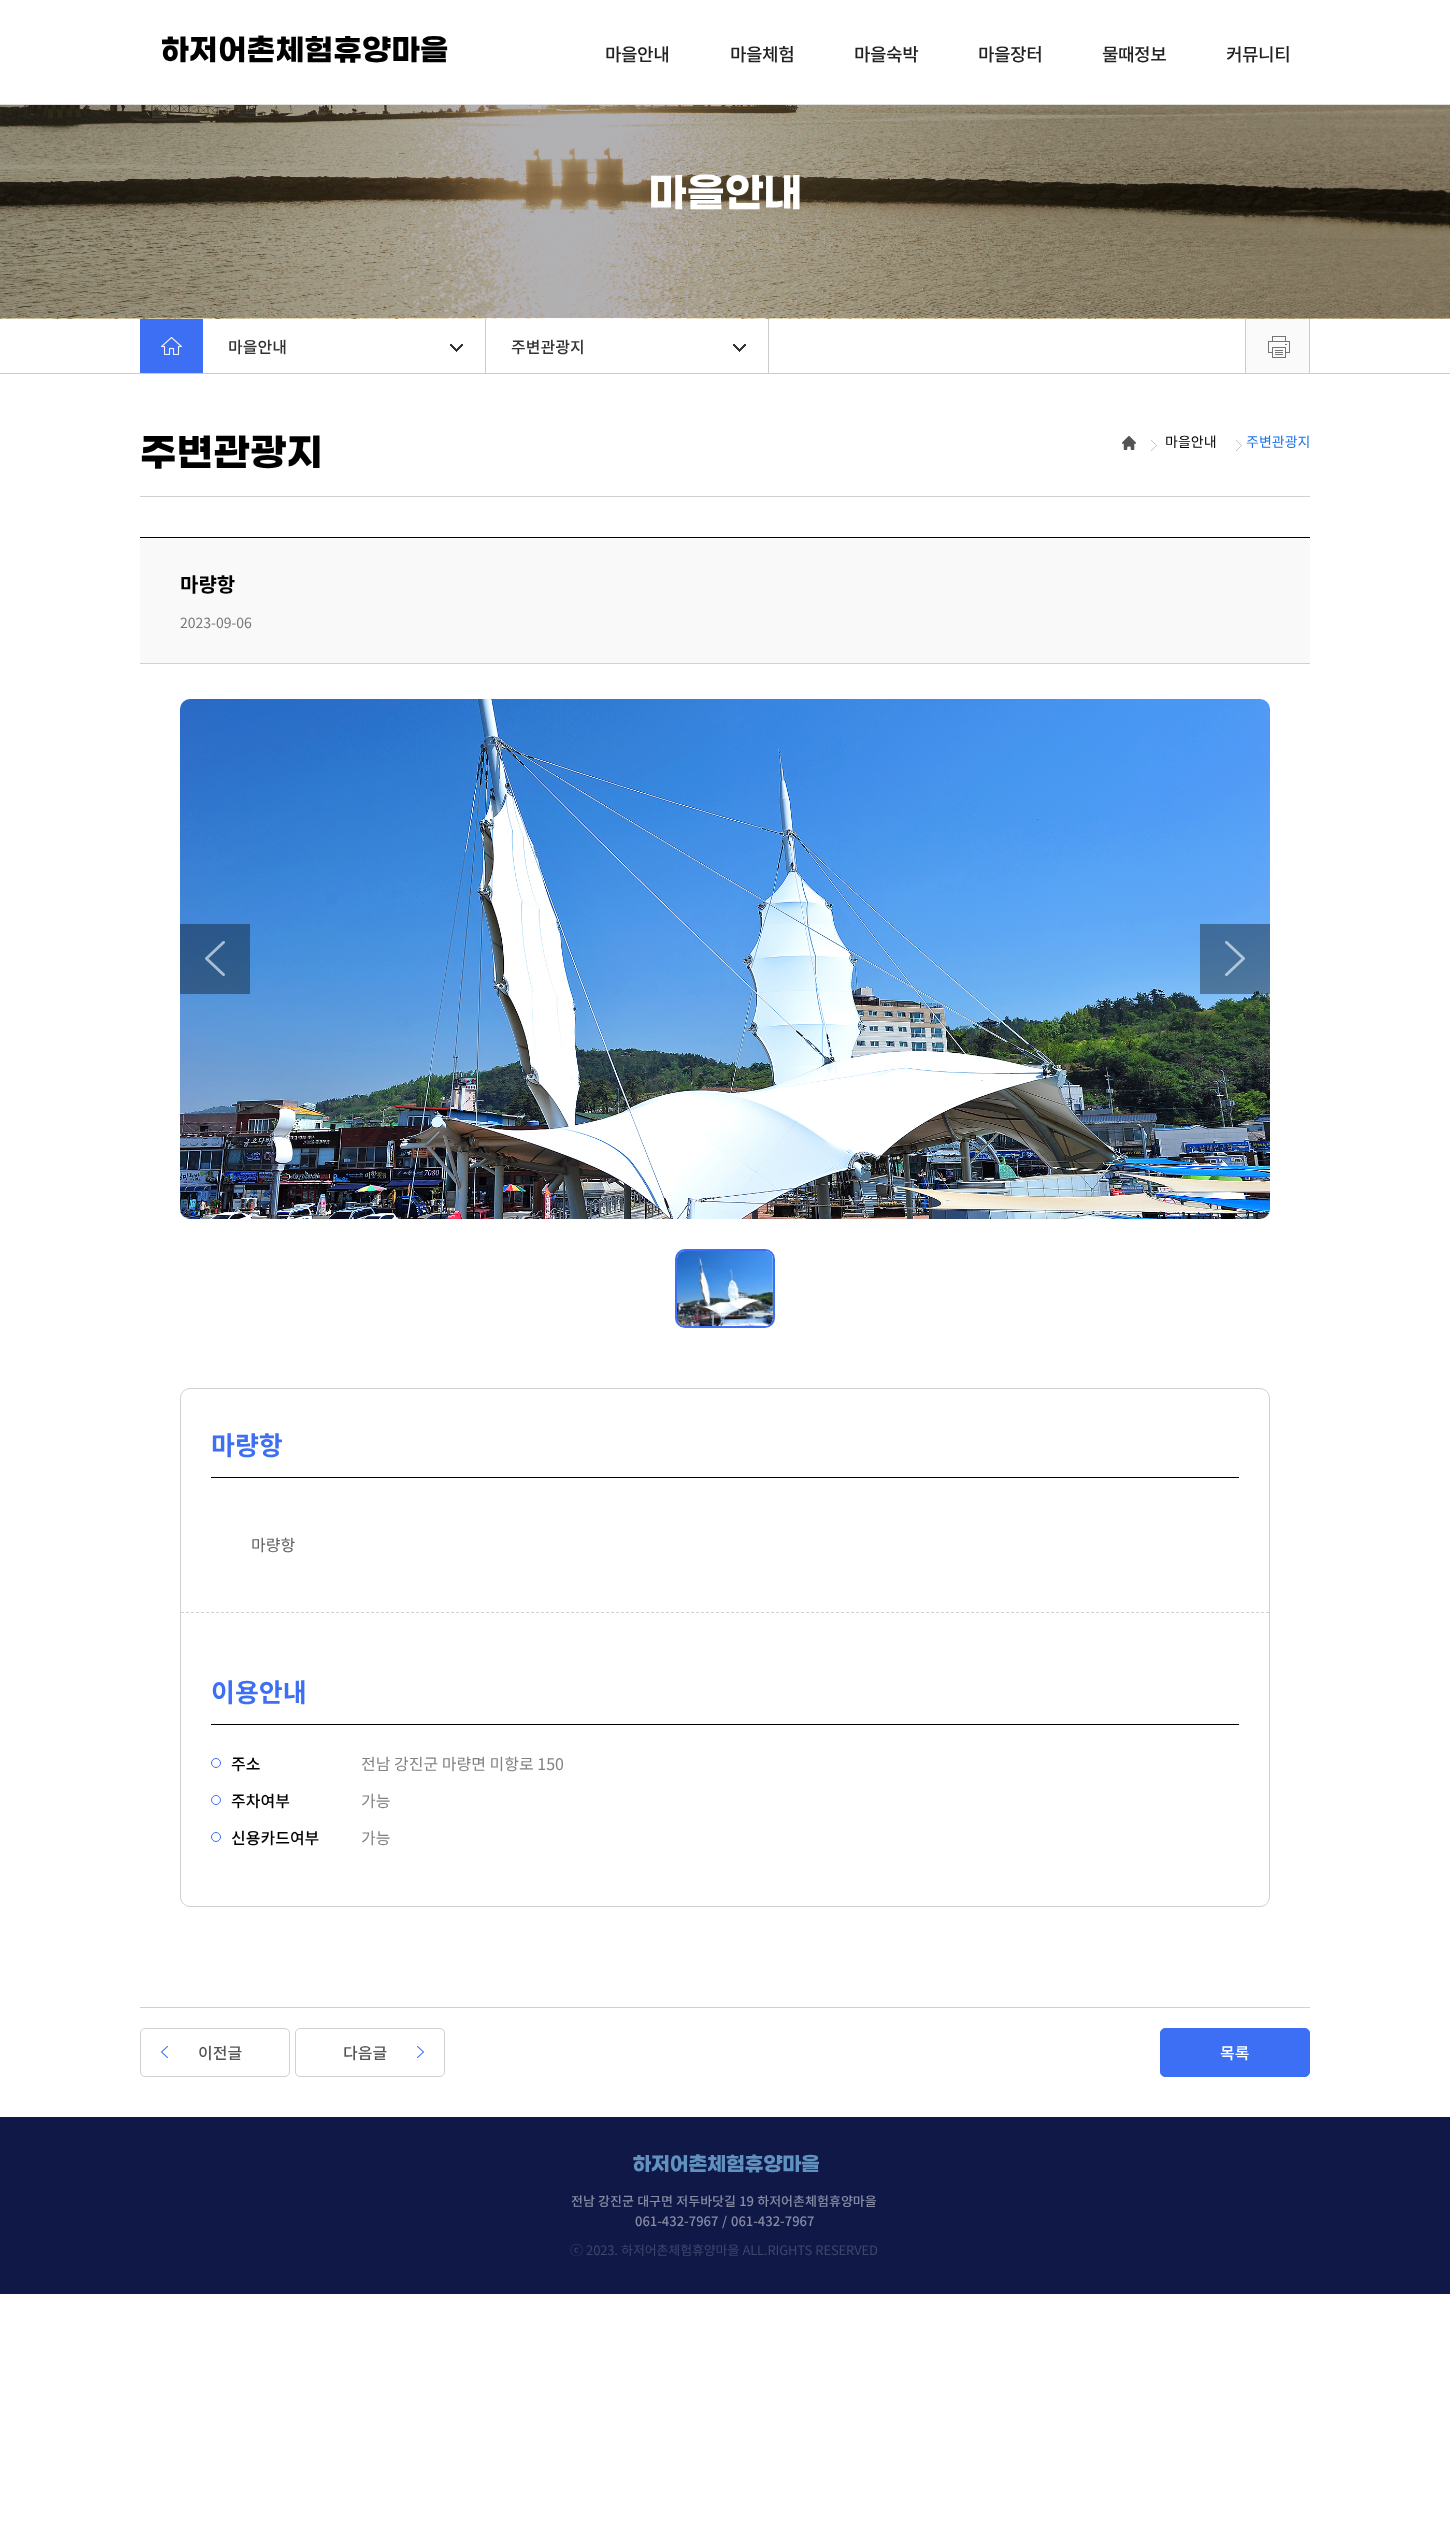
<?xml version="1.0" encoding="UTF-8"?>
<svg xmlns="http://www.w3.org/2000/svg" xmlns:xlink="http://www.w3.org/1999/xlink" width="1450" height="2522">
  <rect width="100%" height="100%" fill="#ffffff" />
  <rect y="104" width="1450" height="1" fill="#e1e1e1" />
  <image x="0" y="105" width="1450" height="214" xlink:href="image1.png" />
  <rect y="373" width="1450" height="1" fill="#cccccc" />
  <rect x="140" y="319" width="63" height="54" fill="#3c6ff3" />
  <image x="161" y="337" width="21" height="18" xlink:href="image2.png" />
  <rect x="485" y="319" width="1" height="54" fill="#cccccc" />
  <image x="450" y="344" width="13" height="8" xlink:href="image3.png" />
  <rect x="768" y="319" width="1" height="54" fill="#cccccc" />
  <image x="733" y="344" width="13" height="8" xlink:href="image3.png" />
  <rect x="1246" y="319" width="63" height="54" fill="#fafafa" />
  <rect x="1309" y="319" width="1" height="54" fill="#cccccc" />
  <rect x="1245" y="319" width="1" height="54" fill="#cccccc" />
  <image x="1268" y="336" width="22" height="22" xlink:href="image4.png" />
  <rect x="140" y="496" width="1170" height="1" fill="#d1d1d1" />
  <image x="1122" y="436" width="14" height="14" xlink:href="image5.png" />
  <image x="1151" y="440" width="6" height="11" xlink:href="image6.png" />
  <image x="1236" y="440" width="6" height="11" xlink:href="image6.png" />
  <rect x="140" y="537" width="1170" height="1" fill="#000000" />
  <rect x="140" y="2007" width="1170" height="1" fill="#d1d1d1" />
  <rect x="140" y="538" width="1170" height="125" fill="#f9f9f9" />
  <rect x="140" y="663" width="1170" height="1" fill="#d1d1d1" />
  <image x="180" y="699" width="1090" height="520" xlink:href="image7.png" />
  <rect x="180" y="924" width="70" height="70" fill="#000000" fill-opacity="0.36" />
  <image x="205" y="941" width="20" height="35" xlink:href="image8.png" />
  <rect x="1200" y="924" width="70" height="70" fill="#000000" fill-opacity="0.36" />
  <image x="1225" y="941" width="20" height="35" xlink:href="image9.png" />
  <rect x="676" y="1250" width="98" height="77" rx="9" fill="none" stroke="#3c6ff3" stroke-width="2" />
  <image x="677" y="1251" width="96" height="75" xlink:href="image10.png" />
  <rect x="180.5" y="1388.5" width="1089" height="518" rx="9.5" fill="none" stroke="#d1d1d1" />
  <path d="M 181 1612.5 h 1088" fill="none" stroke="#d1d1d1" stroke-dasharray="3 2" />
  <rect x="211" y="1477" width="1028" height="1" fill="#000000" />
  <rect x="211" y="1724" width="1028" height="1" fill="#000000" />
  <circle cx="216" cy="1763" r="4.5" fill="none" stroke="#3c6ff3" />
  <circle cx="216" cy="1800" r="4.5" fill="none" stroke="#3c6ff3" />
  <circle cx="216" cy="1837" r="4.5" fill="none" stroke="#3c6ff3" />
  <image x="161" y="2046" width="7" height="12" xlink:href="image11.png" />
  <rect x="140.5" y="2028.5" width="149" height="48" rx="4.5" fill="none" stroke="#d1d1d1" />
  <image x="417" y="2046" width="7" height="12" xlink:href="image12.png" />
  <rect x="295.5" y="2028.5" width="149" height="48" rx="4.5" fill="none" stroke="#d1d1d1" />
  <rect x="1160.5" y="2028.5" width="149" height="48" rx="4.5" fill="#3c6ff3" stroke="#3c6ff3" />
  <rect y="2117" width="1450" height="177" fill="#0f1847" />
  <text x="160" y="59" style="font-family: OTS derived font; font-size: 30px; font-weight: bold; fill: #000000">하저어촌체험휴양마을</text>
  <text x="605" y="61" style="font-family: Noto Sans KR; font-size: 18px; font-weight: 500; letter-spacing: -0.5px; fill: #222222">마을안내</text>
  <text x="730" y="61" style="font-family: Noto Sans KR; font-size: 18px; font-weight: 500; letter-spacing: -0.5px; fill: #222222">마을체험</text>
  <text x="854" y="61" style="font-family: Noto Sans KR; font-size: 18px; font-weight: 500; letter-spacing: -0.5px; fill: #222222">마을숙박</text>
  <text x="978" y="61" style="font-family: Noto Sans KR; font-size: 18px; font-weight: 500; letter-spacing: -0.5px; fill: #222222">마을장터</text>
  <text x="1102" y="61" style="font-family: Noto Sans KR; font-size: 18px; font-weight: 500; letter-spacing: -0.5px; fill: #222222">물때정보</text>
  <text x="1226" y="61" style="font-family: Noto Sans KR; font-size: 18px; font-weight: 500; letter-spacing: -0.5px; fill: #222222">커뮤니티</text>
  <text x="648" y="205" style="font-family: OTS derived font; font-size: 40px; font-weight: bold; fill: #ffffff">마을안내</text>
  <text x="228" y="353" style="font-family: Noto Sans KR; font-size: 16px; font-weight: 500; fill: #333333">마을안내</text>
  <text x="511" y="353" style="font-family: Noto Sans KR; font-size: 16px; font-weight: 500; fill: #333333">주변관광지</text>
  <text x="140" y="464" style="font-family: OTS derived font; font-size: 38px; font-weight: bold; fill: #000000">주변관광지</text>
  <text x="1165" y="447" style="font-family: Noto Sans KR; font-size: 14px; fill: #000000">마을안내</text>
  <text x="1246" y="447" style="font-family: Noto Sans KR; font-size: 14px; fill: #1f73ec">주변관광지</text>
  <text x="180" y="592" style="font-family: Noto Sans KR; font-size: 20px; font-weight: bold; fill: #000000">마량항</text>
  <text x="180" y="628" style="font-family: Noto Sans KR; font-size: 14px; fill: #777777">2023-09-06</text>
  <text x="211" y="1455" style="font-family: Noto Sans KR; font-size: 26px; font-weight: bold; fill: #3c6ff3">마량항</text>
  <text x="251" y="1551" style="font-family: Noto Sans KR; font-size: 16px; fill: #606060">마량항</text>
  <text x="211" y="1702" style="font-family: Noto Sans KR; font-size: 26px; font-weight: bold; fill: #3c6ff3">이용안내</text>
  <text x="231" y="1770" style="font-family: Noto Sans KR; font-size: 16px; font-weight: 500; fill: #000000">주소</text>
  <text x="361" y="1770" style="font-family: Noto Sans KR; font-size: 16px; fill: #828282">전남 강진군 마량면 미항로 150</text>
  <text x="231" y="1807" style="font-family: Noto Sans KR; font-size: 16px; font-weight: 500; fill: #000000">주차여부</text>
  <text x="361" y="1807" style="font-family: Noto Sans KR; font-size: 16px; fill: #828282">가능</text>
  <text x="231" y="1844" style="font-family: Noto Sans KR; font-size: 16px; font-weight: 500; fill: #000000">신용카드여부</text>
  <text x="361" y="1844" style="font-family: Noto Sans KR; font-size: 16px; fill: #828282">가능</text>
  <text x="198" y="2059" style="font-family: Noto Sans KR; font-size: 16px; font-weight: 500; fill: #555555">이전글</text>
  <text x="343" y="2059" style="font-family: Noto Sans KR; font-size: 16px; font-weight: 500; fill: #555555">다음글</text>
  <text x="1220" y="2059" style="font-family: Noto Sans KR; font-size: 16px; font-weight: 500; fill: #ffffff">목록</text>
  <text x="632" y="2170" style="font-family: OTS derived font; font-size: 20px; font-weight: bold; letter-spacing: -0.5px; fill: #6191bf">하저어촌체험휴양마을</text>
  <text x="571" y="2206" word-spacing="0.25" style="font-family: Noto Sans KR; font-size: 13px; font-weight: 500; fill: #878ca3">전남 강진군 대구면 저두바닷길 19 하저어촌체험휴양마을</text>
  <text x="635" y="2226" style="font-family: Noto Sans KR; font-size: 13px; font-weight: 500; fill: #878ca3">061-432-7967</text>
  <text x="722" y="2226" word-spacing="1" style="font-family: Noto Sans KR; font-size: 13px; font-weight: 500; fill: #878ca3">/ 061-432-7967</text>
  <text x="570" y="2255" word-spacing="0.5" style="font-family: Noto Sans KR; font-size: 13px; letter-spacing: -0.15px; fill: #3f466c">ⓒ 2023. 하저어촌체험휴양마을 ALL.RIGHTS RESERVED</text>
</svg>
